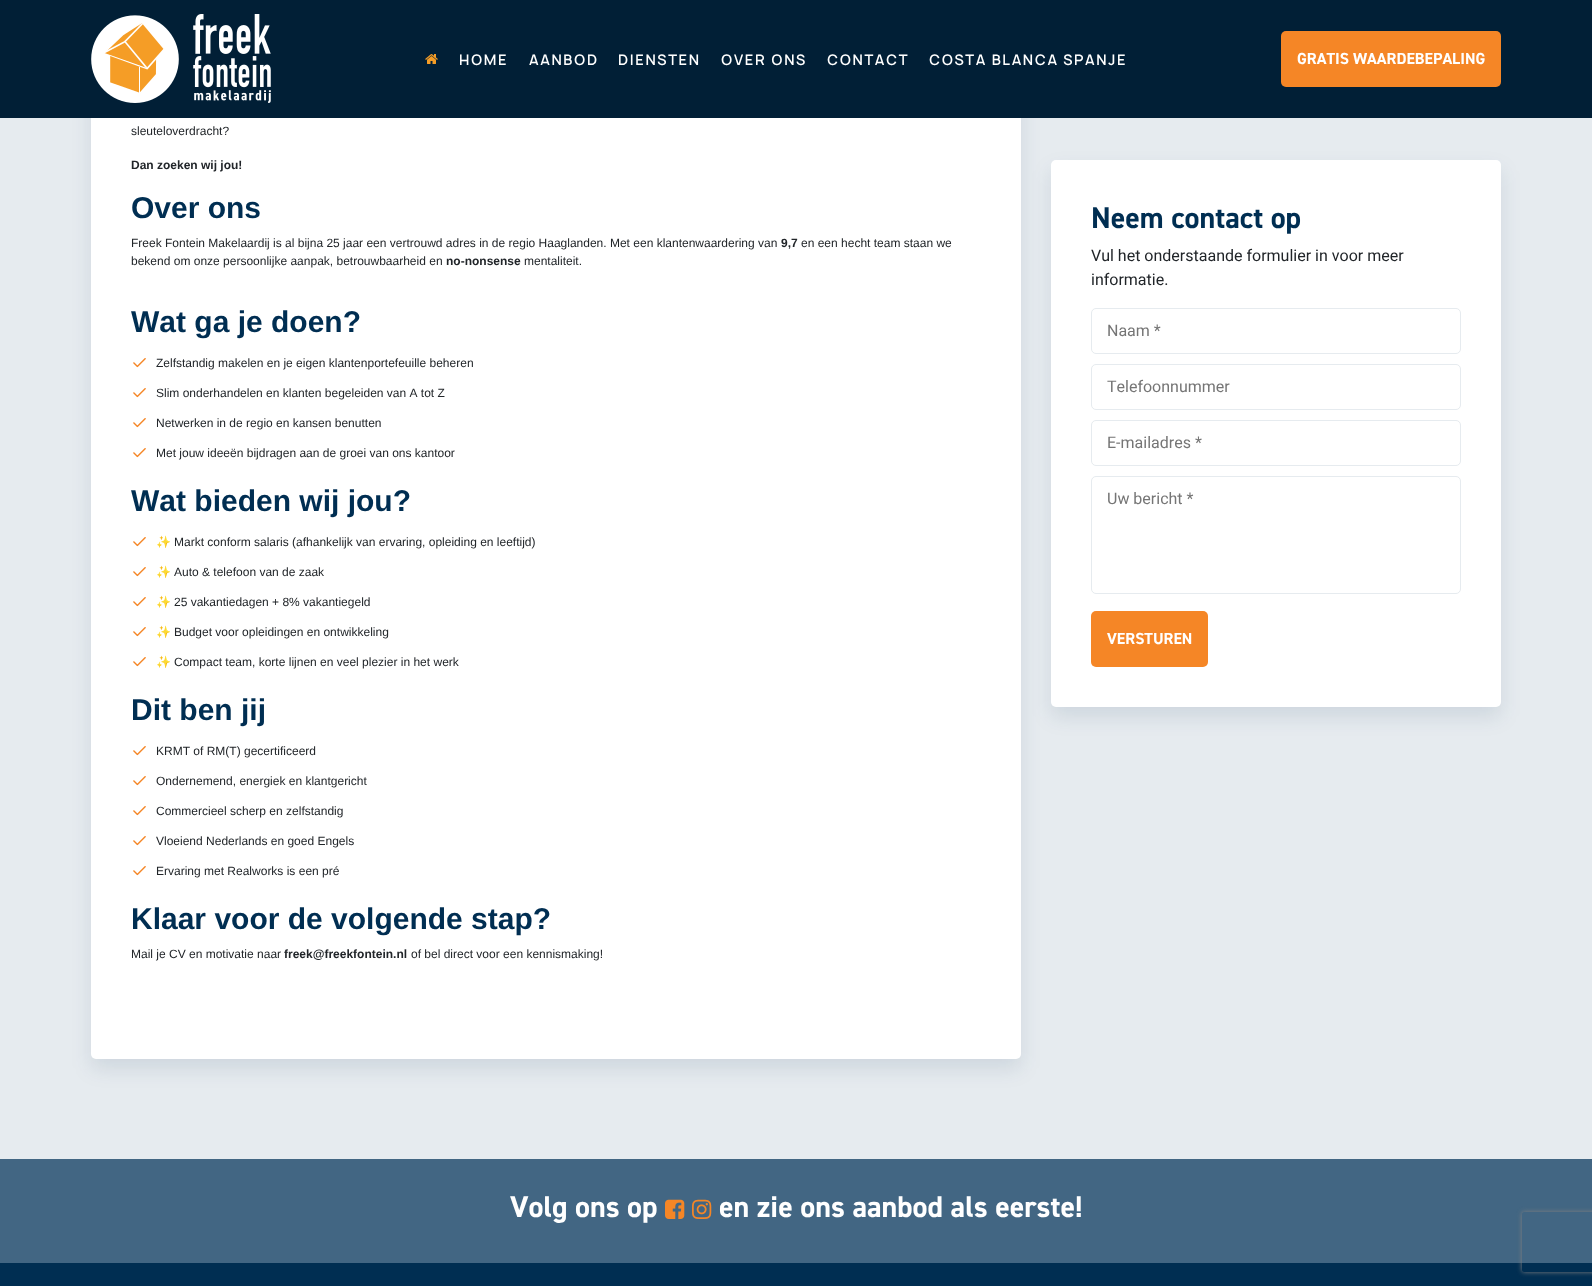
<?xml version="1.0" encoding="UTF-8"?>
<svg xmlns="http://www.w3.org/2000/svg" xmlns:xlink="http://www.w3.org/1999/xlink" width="1592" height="1286">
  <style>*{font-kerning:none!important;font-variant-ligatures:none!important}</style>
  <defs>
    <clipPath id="clip1"><path d="M 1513 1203 h 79 v 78 h -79 z m 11 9 h 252 c 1 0 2 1 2 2 v 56 c 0 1 -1 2 -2 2 h -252 c -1 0 -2 -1 -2 -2 v -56 c 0 -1 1 -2 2 -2 z" clip-rule="evenodd" /></clipPath>
  </defs>
  <rect width="100%" height="100%" fill="#e6ebef" />
  <rect x="91" y="-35" width="930" height="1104" rx="5" fill="#002c51" fill-opacity="0.1" filter="blur(10px)" />
  <rect x="91" y="-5" width="930" height="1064" rx="5" fill="#ffffff" />
  <rect width="1592" height="118" fill="#011f36" />
  <image x="91" y="14" width="180" height="89" xlink:href="image1.png" />
  <image x="425" y="54" width="13" height="10" xlink:href="image2.png" />
  <rect x="1281" y="31" width="220" height="56" rx="5" fill="#f58626" />
  <image x="133" y="358" width="13" height="10" xlink:href="image3.png" />
  <image x="133" y="388" width="13" height="10" xlink:href="image3.png" />
  <image x="133" y="418" width="13" height="10" xlink:href="image3.png" />
  <image x="133" y="448" width="13" height="10" xlink:href="image3.png" />
  <image x="133" y="537" width="13" height="10" xlink:href="image3.png" />
  <image x="133" y="567" width="13" height="10" xlink:href="image3.png" />
  <image x="133" y="597" width="13" height="10" xlink:href="image3.png" />
  <image x="133" y="627" width="13" height="10" xlink:href="image3.png" />
  <image x="133" y="657" width="13" height="10" xlink:href="image3.png" />
  <image x="133" y="746" width="13" height="10" xlink:href="image3.png" />
  <image x="133" y="776" width="13" height="10" xlink:href="image3.png" />
  <image x="133" y="806" width="13" height="10" xlink:href="image3.png" />
  <image x="133" y="836" width="13" height="10" xlink:href="image3.png" />
  <image x="133" y="866" width="13" height="10" xlink:href="image3.png" />
  <rect x="1051" y="170" width="450" height="547" rx="5" fill="#002c51" fill-opacity="0.1" filter="blur(10px)" />
  <rect x="1051" y="160" width="450" height="547" rx="5" fill="#ffffff" />
  <rect x="1091.5" y="308.5" width="369" height="45" rx="4.5" fill="none" stroke="#e6ebef" />
  <rect x="1091.5" y="364.5" width="369" height="45" rx="4.5" fill="none" stroke="#e6ebef" />
  <rect x="1091.5" y="420.5" width="369" height="45" rx="4.5" fill="none" stroke="#e6ebef" />
  <rect x="1091.5" y="476.5" width="369" height="117" rx="4.5" fill="none" stroke="#e6ebef" />
  <rect x="1091" y="611" width="117" height="56" rx="5" fill="#f58626" />
  <rect y="1159" width="1592" height="104" fill="#426683" />
  <rect y="1263" width="1592" height="23" fill="#002e52" />
  <g clip-path="url(#clip1)">
    <rect x="1522" y="1212" width="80" height="60" rx="2" fill="#808080" filter="blur(2.5px)" />
  </g>
  <image x="665" y="1199" width="20" height="20" xlink:href="image4.png" />
  <image x="692" y="1199" width="20" height="20" xlink:href="image5.png" />
  <text x="459" y="65" style="font-family: Manrope; font-size: 14px; font-weight: 600; letter-spacing: 1.6px; fill: #ffffff">HOME</text>
  <text x="529" y="65" style="font-family: Manrope; font-size: 14px; font-weight: 600; letter-spacing: 1.6px; fill: #ffffff">AANBOD</text>
  <text x="618" y="65" style="font-family: Manrope; font-size: 14px; font-weight: 600; letter-spacing: 1.6px; fill: #ffffff">DIENSTEN</text>
  <text x="721" y="65" style="font-family: Manrope; font-size: 14px; font-weight: 600; letter-spacing: 1.6px; fill: #ffffff">OVER ONS</text>
  <text x="827" y="65" style="font-family: Manrope; font-size: 14px; font-weight: 600; letter-spacing: 1.6px; fill: #ffffff">CONTACT</text>
  <text x="929" y="65" style="font-family: Manrope; font-size: 14px; font-weight: 600; letter-spacing: 1.6px; fill: #ffffff">COSTA BLANCA SPANJE</text>
  <text x="1297" y="64" style="font-family: 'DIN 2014'; font-size: 16px; font-weight: bold; fill: #ffffff">GRATIS WAARDEBEPALING</text>
  <text x="131" y="135" style="font-family: Liberation Sans; font-size: 12px; fill: #212529">sleuteloverdracht?</text>
  <text x="131" y="169" style="font-family: Liberation Sans; font-size: 12px; font-weight: bold; fill: #212529">Dan zoeken wij jou!</text>
  <text x="131" y="218" style="font-family: Liberation Sans; font-size: 30px; font-weight: bold; fill: #002e52">Over ons</text>
  <text x="131" y="247" style="font-family: Liberation Sans; font-size: 12px; fill: #212529">Freek Fontein Makelaardij is al bijna 25 jaar een vertrouwd adres in de regio Haaglanden. Met een klantenwaardering van</text>
  <text x="781" y="247" style="font-family: Liberation Sans; font-size: 12px; font-weight: bold; fill: #212529">9,7</text>
  <text x="801" y="247" style="font-family: Liberation Sans; font-size: 12px; fill: #212529">en een hecht team staan we</text>
  <text x="131" y="265" style="font-family: Liberation Sans; font-size: 12px; fill: #212529">bekend om onze persoonlijke aanpak, betrouwbaarheid en</text>
  <text x="446" y="265" style="font-family: Liberation Sans; font-size: 12px; font-weight: bold; fill: #212529">no-nonsense</text>
  <text x="524" y="265" style="font-family: Liberation Sans; font-size: 12px; fill: #212529">mentaliteit.</text>
  <text x="131" y="332" style="font-family: Liberation Sans; font-size: 30px; font-weight: bold; fill: #002e52">Wat ga je doen?</text>
  <text x="156" y="367" style="font-family: Liberation Sans; font-size: 12px; fill: #212529">Zelfstandig makelen en je eigen klantenportefeuille beheren</text>
  <text x="156" y="397" style="font-family: Liberation Sans; font-size: 12px; fill: #212529">Slim onderhandelen en klanten begeleiden van A tot Z</text>
  <text x="156" y="427" style="font-family: Liberation Sans; font-size: 12px; fill: #212529">Netwerken in de regio en kansen benutten</text>
  <text x="156" y="457" style="font-family: Liberation Sans; font-size: 12px; fill: #212529">Met jouw ideeën bijdragen aan de groei van ons kantoor</text>
  <text x="131" y="511" style="font-family: Liberation Sans; font-size: 30px; font-weight: bold; fill: #002e52">Wat bieden wij jou?</text>
  <text x="156" y="546" style="font-family: Noto Color Emoji; font-size: 12px; fill: #212529">✨</text>
  <text x="174" y="546" style="font-family: Liberation Sans; font-size: 12px; fill: #212529">Markt conform salaris (afhankelijk van ervaring, opleiding en leeftijd)</text>
  <text x="156" y="576" style="font-family: Noto Color Emoji; font-size: 12px; fill: #212529">✨</text>
  <text x="174" y="576" style="font-family: Liberation Sans; font-size: 12px; fill: #212529">Auto &amp; telefoon van de zaak</text>
  <text x="156" y="606" style="font-family: Noto Color Emoji; font-size: 12px; fill: #212529">✨</text>
  <text x="174" y="606" style="font-family: Liberation Sans; font-size: 12px; fill: #212529">25 vakantiedagen + 8% vakantiegeld</text>
  <text x="156" y="636" style="font-family: Noto Color Emoji; font-size: 12px; fill: #212529">✨</text>
  <text x="174" y="636" style="font-family: Liberation Sans; font-size: 12px; fill: #212529">Budget voor opleidingen en ontwikkeling</text>
  <text x="156" y="666" style="font-family: Noto Color Emoji; font-size: 12px; fill: #212529">✨</text>
  <text x="174" y="666" style="font-family: Liberation Sans; font-size: 12px; fill: #212529">Compact team, korte lijnen en veel plezier in het werk</text>
  <text x="131" y="720" style="font-family: Liberation Sans; font-size: 30px; font-weight: bold; fill: #002e52">Dit ben jij</text>
  <text x="156" y="755" style="font-family: Liberation Sans; font-size: 12px; fill: #212529">KRMT of RM(T) gecertificeerd</text>
  <text x="156" y="785" style="font-family: Liberation Sans; font-size: 12px; fill: #212529">Ondernemend, energiek en klantgericht</text>
  <text x="156" y="815" style="font-family: Liberation Sans; font-size: 12px; fill: #212529">Commercieel scherp en zelfstandig</text>
  <text x="156" y="845" style="font-family: Liberation Sans; font-size: 12px; fill: #212529">Vloeiend Nederlands en goed Engels</text>
  <text x="156" y="875" style="font-family: Liberation Sans; font-size: 12px; fill: #212529">Ervaring met Realworks is een pré</text>
  <text x="131" y="929" style="font-family: Liberation Sans; font-size: 30px; font-weight: bold; fill: #002e52">Klaar voor de volgende stap?</text>
  <text x="131" y="958" style="font-family: Liberation Sans; font-size: 12px; fill: #212529">Mail je CV en motivatie naar</text>
  <text x="284" y="958" style="font-family: Liberation Sans; font-size: 12px; font-weight: bold; fill: #212529">freek@freekfontein.nl</text>
  <text x="411" y="958" style="font-family: Liberation Sans; font-size: 12px; fill: #212529">of bel direct voor een kennismaking!</text>
  <text x="1091" y="228" style="font-family: 'DIN 2014'; font-size: 30px; font-weight: bold; fill: #002e52">Neem contact op</text>
  <text x="1091" y="261" style="font-family: Roboto; font-size: 16px; fill: #212529">Vul het onderstaande formulier in voor meer</text>
  <text x="1091" y="285" style="font-family: Roboto; font-size: 16px; fill: #212529">informatie.</text>
  <text x="1107" y="336" style="font-family: Roboto; font-size: 16px; fill: #757575">Naam *</text>
  <text x="1107" y="392" style="font-family: Roboto; font-size: 16px; fill: #757575">Telefoonnummer</text>
  <text x="1107" y="448" style="font-family: Roboto; font-size: 16px; fill: #757575">E-mailadres *</text>
  <text x="1107" y="504" style="font-family: Roboto; font-size: 16px; fill: #757575">Uw bericht *</text>
  <text x="1107" y="644" style="font-family: 'DIN 2014'; font-size: 16px; font-weight: bold; fill: #ffffff">VERSTUREN</text>
  <text x="510" y="1217" style="font-family: 'DIN 2014'; font-size: 30px; font-weight: bold; fill: #ffffff">Volg ons op</text>
  <text x="719" y="1217" style="font-family: 'DIN 2014'; font-size: 30px; font-weight: bold; fill: #ffffff">en zie ons aanbod als eerste!</text>
</svg>
